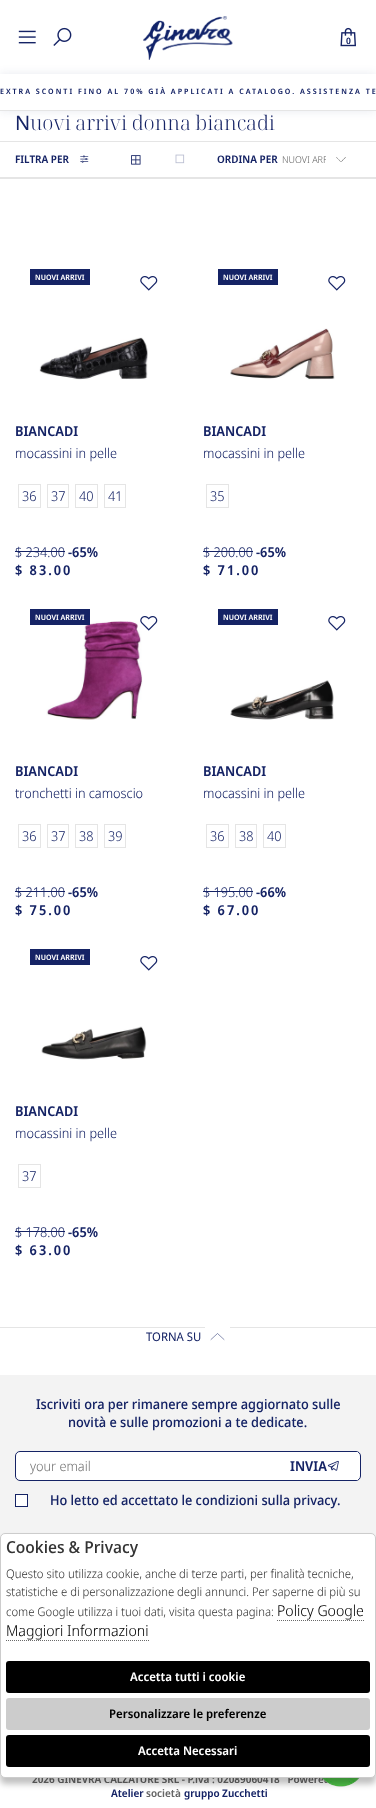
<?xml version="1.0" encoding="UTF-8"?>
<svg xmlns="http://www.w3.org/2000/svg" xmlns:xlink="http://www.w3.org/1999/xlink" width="376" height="1808">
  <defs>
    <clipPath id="clip1"><path d="M 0 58 h 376 v 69 h -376 z m 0 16 h 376 v 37 h -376 z" clip-rule="evenodd" /></clipPath>
    <clipPath id="clip2"><rect x="282" y="142" width="44" height="35" /></clipPath>
    <clipPath id="clip3"><rect x="30" y="1457" width="317" height="18" /></clipPath>
  </defs>
  <rect width="100%" height="100%" fill="#ffffff" />
  <image x="18" y="30" width="18" height="14" xlink:href="image1.png" />
  <image x="53" y="27" width="19" height="19" xlink:href="image2.png" />
  <g clip-path="url(#clip1)">
    <rect y="74" width="376" height="37" fill="#152365" fill-opacity="0.1" filter="blur(5px)" />
  </g>
  <image x="143" y="16" width="90" height="44" xlink:href="image3.png" />
  <image x="340" y="27" width="16" height="20" xlink:href="image4.png" />
  <rect y="110" width="376" height="1" fill="#e5e5e5" />
  <rect y="141" width="376" height="1" fill="#e5e5e5" />
  <rect y="177" width="376" height="2" fill="#e5e5e5" />
  <image x="80" y="155" width="9" height="8" xlink:href="image5.png" />
  <image x="131" y="155" width="10" height="10" xlink:href="image6.png" />
  <image x="175" y="154" width="10" height="10" xlink:href="image7.png" />
  <image x="336" y="157" width="10" height="5" xlink:href="image8.png" />
  <rect x="30" y="269" width="60" height="16" fill="#152365" />
  <image x="140" y="276" width="18" height="15" xlink:href="image9.png" />
  <image x="39" y="337" width="109" height="43" xlink:href="image10.png" />
  <rect x="18.5" y="484.5" width="22" height="23" fill="none" stroke="#e5e5e5" />
  <rect x="47.5" y="484.5" width="21" height="23" fill="none" stroke="#e5e5e5" />
  <rect x="75.5" y="484.5" width="22" height="23" fill="none" stroke="#e5e5e5" />
  <rect x="104.5" y="484.5" width="21" height="23" fill="none" stroke="#e5e5e5" />
  <rect x="15" y="551" width="50" height="1" fill="#152365" />
  <rect x="218" y="269" width="60" height="16" fill="#152365" />
  <image x="328" y="276" width="18" height="15" xlink:href="image9.png" />
  <image x="230" y="328" width="105" height="52" xlink:href="image11.png" />
  <rect x="206.5" y="484.5" width="22" height="23" fill="none" stroke="#e5e5e5" />
  <rect x="203" y="551" width="50" height="1" fill="#152365" />
  <image x="46" y="621" width="97" height="99" xlink:href="image13.png" />
  <rect x="30" y="609" width="60" height="16" fill="#152365" />
  <image x="140" y="616" width="18" height="15" xlink:href="image12.png" />
  <rect x="18.5" y="824.5" width="22" height="23" fill="none" stroke="#e5e5e5" />
  <rect x="47.5" y="824.5" width="21" height="23" fill="none" stroke="#e5e5e5" />
  <rect x="75.5" y="824.5" width="22" height="23" fill="none" stroke="#e5e5e5" />
  <rect x="104.5" y="824.5" width="21" height="23" fill="none" stroke="#e5e5e5" />
  <rect x="15" y="891" width="50" height="1" fill="#152365" />
  <rect x="218" y="609" width="60" height="16" fill="#152365" />
  <image x="328" y="616" width="18" height="15" xlink:href="image9.png" />
  <image x="230" y="680" width="104" height="40" xlink:href="image14.png" />
  <rect x="206.5" y="824.5" width="22" height="23" fill="none" stroke="#e5e5e5" />
  <rect x="235.5" y="824.5" width="21" height="23" fill="none" stroke="#e5e5e5" />
  <rect x="263.5" y="824.5" width="22" height="23" fill="none" stroke="#e5e5e5" />
  <rect x="203" y="891" width="50" height="1" fill="#152365" />
  <rect x="30" y="949" width="60" height="16" fill="#152365" />
  <image x="140" y="956" width="18" height="15" xlink:href="image9.png" />
  <image x="41" y="1026" width="106" height="34" xlink:href="image15.png" />
  <rect x="18.5" y="1164.5" width="22" height="23" fill="none" stroke="#e5e5e5" />
  <rect x="15" y="1231" width="50" height="1" fill="#152365" />
  <rect y="1327" width="376" height="1" fill="#e5e5e5" />
  <rect x="205" y="1327" width="25" height="1" fill="#ffffff" />
  <path d="M 224 1339.5 l -6.5 -6 l -6.5 6" fill="none" stroke="#152365" stroke-width="0.5" stroke-linecap="round" stroke-linejoin="round" />
  <rect y="1375" width="376" height="163" fill="#f3f3f3" />
  <rect x="15.5" y="1451.5" width="345" height="29" rx="4.5" fill="#ffffff" stroke="#152365" />
  <rect x="356" y="1452" width="2" height="28" fill="#ffffff" />
  <rect x="15.5" y="1494.5" width="12" height="12" fill="#ffffff" stroke="#152365" />
  <text x="346" y="44" style="font-family: Noto Sans Display; font-size: 9px; font-weight: 600; fill: #152365">0</text>
  <text x="0" y="94" style="font-family: Noto Sans Display; font-size: 7.5px; font-weight: 600; letter-spacing: 2px; fill: #152365">EXTRA SCONTI FINO AL 70% GIÀ APPLICATI A CATALOGO. ASSISTENZA TE</text>
  <text x="15" y="130" style="font-family: Noto Sans; font-size: 20px; fill: #152365">N</text>
  <text x="30" y="130" style="font-family: Noto Serif Display; font-size: 20px; font-weight: 300; fill: #152365">uovi arrivi donna biancadi</text>
  <text x="15" y="163" style="font-family: Noto Sans Display; font-size: 10.5px; font-weight: 600; fill: #152365">FILTRA PER</text>
  <text x="217" y="163" style="font-family: Noto Sans Display; font-size: 10.5px; font-weight: 600; fill: #152365">ORDINA PER</text>
  <g clip-path="url(#clip2)">
    <text x="282" y="163" style="font-family: Noto Sans Display; font-size: 9.5px; font-weight: 300; fill: #666666">NUOVI ARR</text>
  </g>
  <text x="35" y="280" style="font-family: Noto Sans Display; font-size: 7.5px; font-weight: 600; fill: #ffffff">NUOVI ARRIVI</text>
  <text x="15" y="436" style="font-family: Noto Sans Display; font-size: 13.5px; font-weight: 600; fill: #152365">BIANCADI</text>
  <text x="15" y="458" style="font-family: Noto Sans Display; font-size: 13.5px; font-weight: 300; fill: #152365">mocassini in pelle</text>
  <text x="22" y="501" style="font-family: Noto Sans Display; font-size: 13.5px; font-weight: 300; fill: #152365">36</text>
  <text x="51" y="501" style="font-family: Noto Sans Display; font-size: 13.5px; font-weight: 300; fill: #152365">37</text>
  <text x="79" y="501" style="font-family: Noto Sans Display; font-size: 13.5px; font-weight: 300; fill: #152365">40</text>
  <text x="108" y="501" style="font-family: Noto Sans Display; font-size: 13.5px; font-weight: 300; fill: #152365">41</text>
  <text x="15" y="557" style="font-family: Noto Sans Display; font-size: 13.5px; font-weight: 300; fill: #152365">$ 234.00</text>
  <text x="68" y="557" style="font-family: Noto Sans Display; font-size: 13.5px; font-weight: 600; fill: #152365">-65%</text>
  <text x="15" y="575" style="font-family: Noto Sans Display; font-size: 13.5px; font-weight: 600; letter-spacing: 2px; fill: #152365">$ 83.00</text>
  <text x="223" y="280" style="font-family: Noto Sans Display; font-size: 7.5px; font-weight: 600; fill: #ffffff">NUOVI ARRIVI</text>
  <text x="203" y="436" style="font-family: Noto Sans Display; font-size: 13.5px; font-weight: 600; fill: #152365">BIANCADI</text>
  <text x="203" y="458" style="font-family: Noto Sans Display; font-size: 13.5px; font-weight: 300; fill: #152365">mocassini in pelle</text>
  <text x="210" y="501" style="font-family: Noto Sans Display; font-size: 13.5px; font-weight: 300; fill: #152365">35</text>
  <text x="203" y="557" style="font-family: Noto Sans Display; font-size: 13.5px; font-weight: 300; fill: #152365">$ 200.00</text>
  <text x="256" y="557" style="font-family: Noto Sans Display; font-size: 13.5px; font-weight: 600; fill: #152365">-65%</text>
  <text x="203" y="575" style="font-family: Noto Sans Display; font-size: 13.5px; font-weight: 600; letter-spacing: 2px; fill: #152365">$ 71.00</text>
  <text x="35" y="620" style="font-family: Noto Sans Display; font-size: 7.5px; font-weight: 600; fill: #ffffff">NUOVI ARRIVI</text>
  <text x="15" y="776" style="font-family: Noto Sans Display; font-size: 13.5px; font-weight: 600; fill: #152365">BIANCADI</text>
  <text x="15" y="798" style="font-family: Noto Sans Display; font-size: 13.5px; font-weight: 300; fill: #152365">tronchetti in camoscio</text>
  <text x="22" y="841" style="font-family: Noto Sans Display; font-size: 13.5px; font-weight: 300; fill: #152365">36</text>
  <text x="51" y="841" style="font-family: Noto Sans Display; font-size: 13.5px; font-weight: 300; fill: #152365">37</text>
  <text x="79" y="841" style="font-family: Noto Sans Display; font-size: 13.5px; font-weight: 300; fill: #152365">38</text>
  <text x="108" y="841" style="font-family: Noto Sans Display; font-size: 13.5px; font-weight: 300; fill: #152365">39</text>
  <text x="15" y="897" style="font-family: Noto Sans Display; font-size: 13.5px; font-weight: 300; fill: #152365">$ 211.00</text>
  <text x="68" y="897" style="font-family: Noto Sans Display; font-size: 13.5px; font-weight: 600; fill: #152365">-65%</text>
  <text x="15" y="915" style="font-family: Noto Sans Display; font-size: 13.5px; font-weight: 600; letter-spacing: 2px; fill: #152365">$ 75.00</text>
  <text x="223" y="620" style="font-family: Noto Sans Display; font-size: 7.5px; font-weight: 600; fill: #ffffff">NUOVI ARRIVI</text>
  <text x="203" y="776" style="font-family: Noto Sans Display; font-size: 13.5px; font-weight: 600; fill: #152365">BIANCADI</text>
  <text x="203" y="798" style="font-family: Noto Sans Display; font-size: 13.5px; font-weight: 300; fill: #152365">mocassini in pelle</text>
  <text x="210" y="841" style="font-family: Noto Sans Display; font-size: 13.5px; font-weight: 300; fill: #152365">36</text>
  <text x="239" y="841" style="font-family: Noto Sans Display; font-size: 13.5px; font-weight: 300; fill: #152365">38</text>
  <text x="267" y="841" style="font-family: Noto Sans Display; font-size: 13.5px; font-weight: 300; fill: #152365">40</text>
  <text x="203" y="897" style="font-family: Noto Sans Display; font-size: 13.5px; font-weight: 300; fill: #152365">$ 195.00</text>
  <text x="256" y="897" style="font-family: Noto Sans Display; font-size: 13.5px; font-weight: 600; fill: #152365">-66%</text>
  <text x="203" y="915" style="font-family: Noto Sans Display; font-size: 13.5px; font-weight: 600; letter-spacing: 2px; fill: #152365">$ 67.00</text>
  <text x="35" y="960" style="font-family: Noto Sans Display; font-size: 7.5px; font-weight: 600; fill: #ffffff">NUOVI ARRIVI</text>
  <text x="15" y="1116" style="font-family: Noto Sans Display; font-size: 13.5px; font-weight: 600; fill: #152365">BIANCADI</text>
  <text x="15" y="1138" style="font-family: Noto Sans Display; font-size: 13.5px; font-weight: 300; fill: #152365">mocassini in pelle</text>
  <text x="22" y="1181" style="font-family: Noto Sans Display; font-size: 13.5px; font-weight: 300; fill: #152365">37</text>
  <text x="15" y="1237" style="font-family: Noto Sans Display; font-size: 13.5px; font-weight: 300; fill: #152365">$ 178.00</text>
  <text x="68" y="1237" style="font-family: Noto Sans Display; font-size: 13.5px; font-weight: 600; fill: #152365">-65%</text>
  <text x="15" y="1255" style="font-family: Noto Sans Display; font-size: 13.5px; font-weight: 600; letter-spacing: 2px; fill: #152365">$ 63.00</text>
  <text x="146" y="1341" style="font-family: Noto Sans Display; font-size: 12px; fill: #152365">TORNA SU</text>
  <text x="36" y="1409" style="font-family: Noto Sans Display; font-size: 13.5px; font-weight: 500; fill: #152365">Iscriviti ora per rimanere sempre aggiornato sulle</text>
  <text x="68" y="1427" style="font-family: Noto Sans Display; font-size: 13.5px; font-weight: 500; fill: #152365">novità e sulle promozioni a te dedicate.</text>
  <g clip-path="url(#clip3)">
    <text x="30" y="1471" style="font-family: Noto Sans Display; font-size: 13.5px; font-weight: 300; fill: #757575">your email</text>
  </g>
  <text x="290" y="1471" style="font-family: Noto Sans Display; font-size: 13.5px; font-weight: 600; fill: #152365">INVIA</text>
  <image x="327" y="1460" width="12" height="11" xlink:href="image16.png" />
  <text x="50" y="1505" style="font-family: Noto Sans Display; font-size: 13.5px; font-weight: 500; fill: #152365">Ho letto ed accettato le condizioni sulla privacy.</text>
  <text x="32" y="1783" style="font-family: Noto Sans Display; font-size: 10.5px; font-weight: 600; fill: #666666" xml:space="preserve">2026 GINEVRA CALZATURE SRL - P.iva : 02089060418   Powered</text>
  <text x="111" y="1797" style="font-family: Noto Sans Display; font-size: 10.5px; font-weight: 600; fill: #152365">Atelier</text>
  <text x="146" y="1797" style="font-family: Noto Sans Display; font-size: 10.5px; font-weight: 600; fill: #666666">società</text>
  <text x="184" y="1797" style="font-family: Noto Sans Display; font-size: 10.5px; font-weight: 600; fill: #152365">gruppo Zucchetti</text>
  <image x="321" y="1778" width="39" height="9" xlink:href="image17.png" />
  <rect y="1539" width="376" height="245" rx="5" fill="#000000" fill-opacity="0.25" filter="blur(3px)" />
  <rect x="0.5" y="1533.5" width="375" height="244" rx="4.5" fill="#ffffff" stroke="#cccccc" />
  <text x="6" y="1553" style="font-family: Noto Sans Display; font-size: 16.5px; font-weight: 500; fill: #333333">Cookies &amp; Privacy</text>
  <text x="6" y="1578" style="font-family: Noto Sans Display; font-size: 12px; font-weight: 300; fill: #333333">Questo sito utilizza cookie, anche di terze parti, per finalità tecniche,</text>
  <text x="6" y="1596" style="font-family: Noto Sans Display; font-size: 12px; font-weight: 300; fill: #333333">statistiche e di personalizzazione degli annunci. Per saperne di più su</text>
  <text x="6" y="1616" style="font-family: Noto Sans Display; font-size: 12px; font-weight: 300; fill: #333333">come Google utilizza i tuoi dati, visita questa pagina:</text>
  <text x="277" y="1616" style="font-family: Noto Sans Display; font-size: 15px; font-weight: 300; fill: #000000">Policy Google</text>
  <path d="M 277 1620.5 h 87" fill="none" stroke="#696969" stroke-dasharray="1 1" />
  <text x="6" y="1636" style="font-family: Noto Sans Display; font-size: 15px; font-weight: 300; fill: #000000">Maggiori Informazioni</text>
  <path d="M 6 1640.5 h 143" fill="none" stroke="#696969" stroke-dasharray="1 1" />
  <rect x="6" y="1661" width="364" height="32" rx="3" fill="#000000" />
  <text x="130" y="1681" style="font-family: Noto Sans Display; font-size: 12px; font-weight: 600; fill: #ffffff">Accetta tutti i cookie</text>
  <rect x="6" y="1698" width="364" height="32" rx="3" fill="#cccccc" />
  <text x="109" y="1718" style="font-family: Noto Sans Display; font-size: 12px; font-weight: 600; fill: #000000">Personalizzare le preferenze</text>
  <rect x="6" y="1735" width="364" height="32" rx="3" fill="#000000" />
  <text x="138" y="1755" style="font-family: Noto Sans Display; font-size: 12px; font-weight: 600; fill: #ffffff">Accetta Necessari</text>
</svg>
